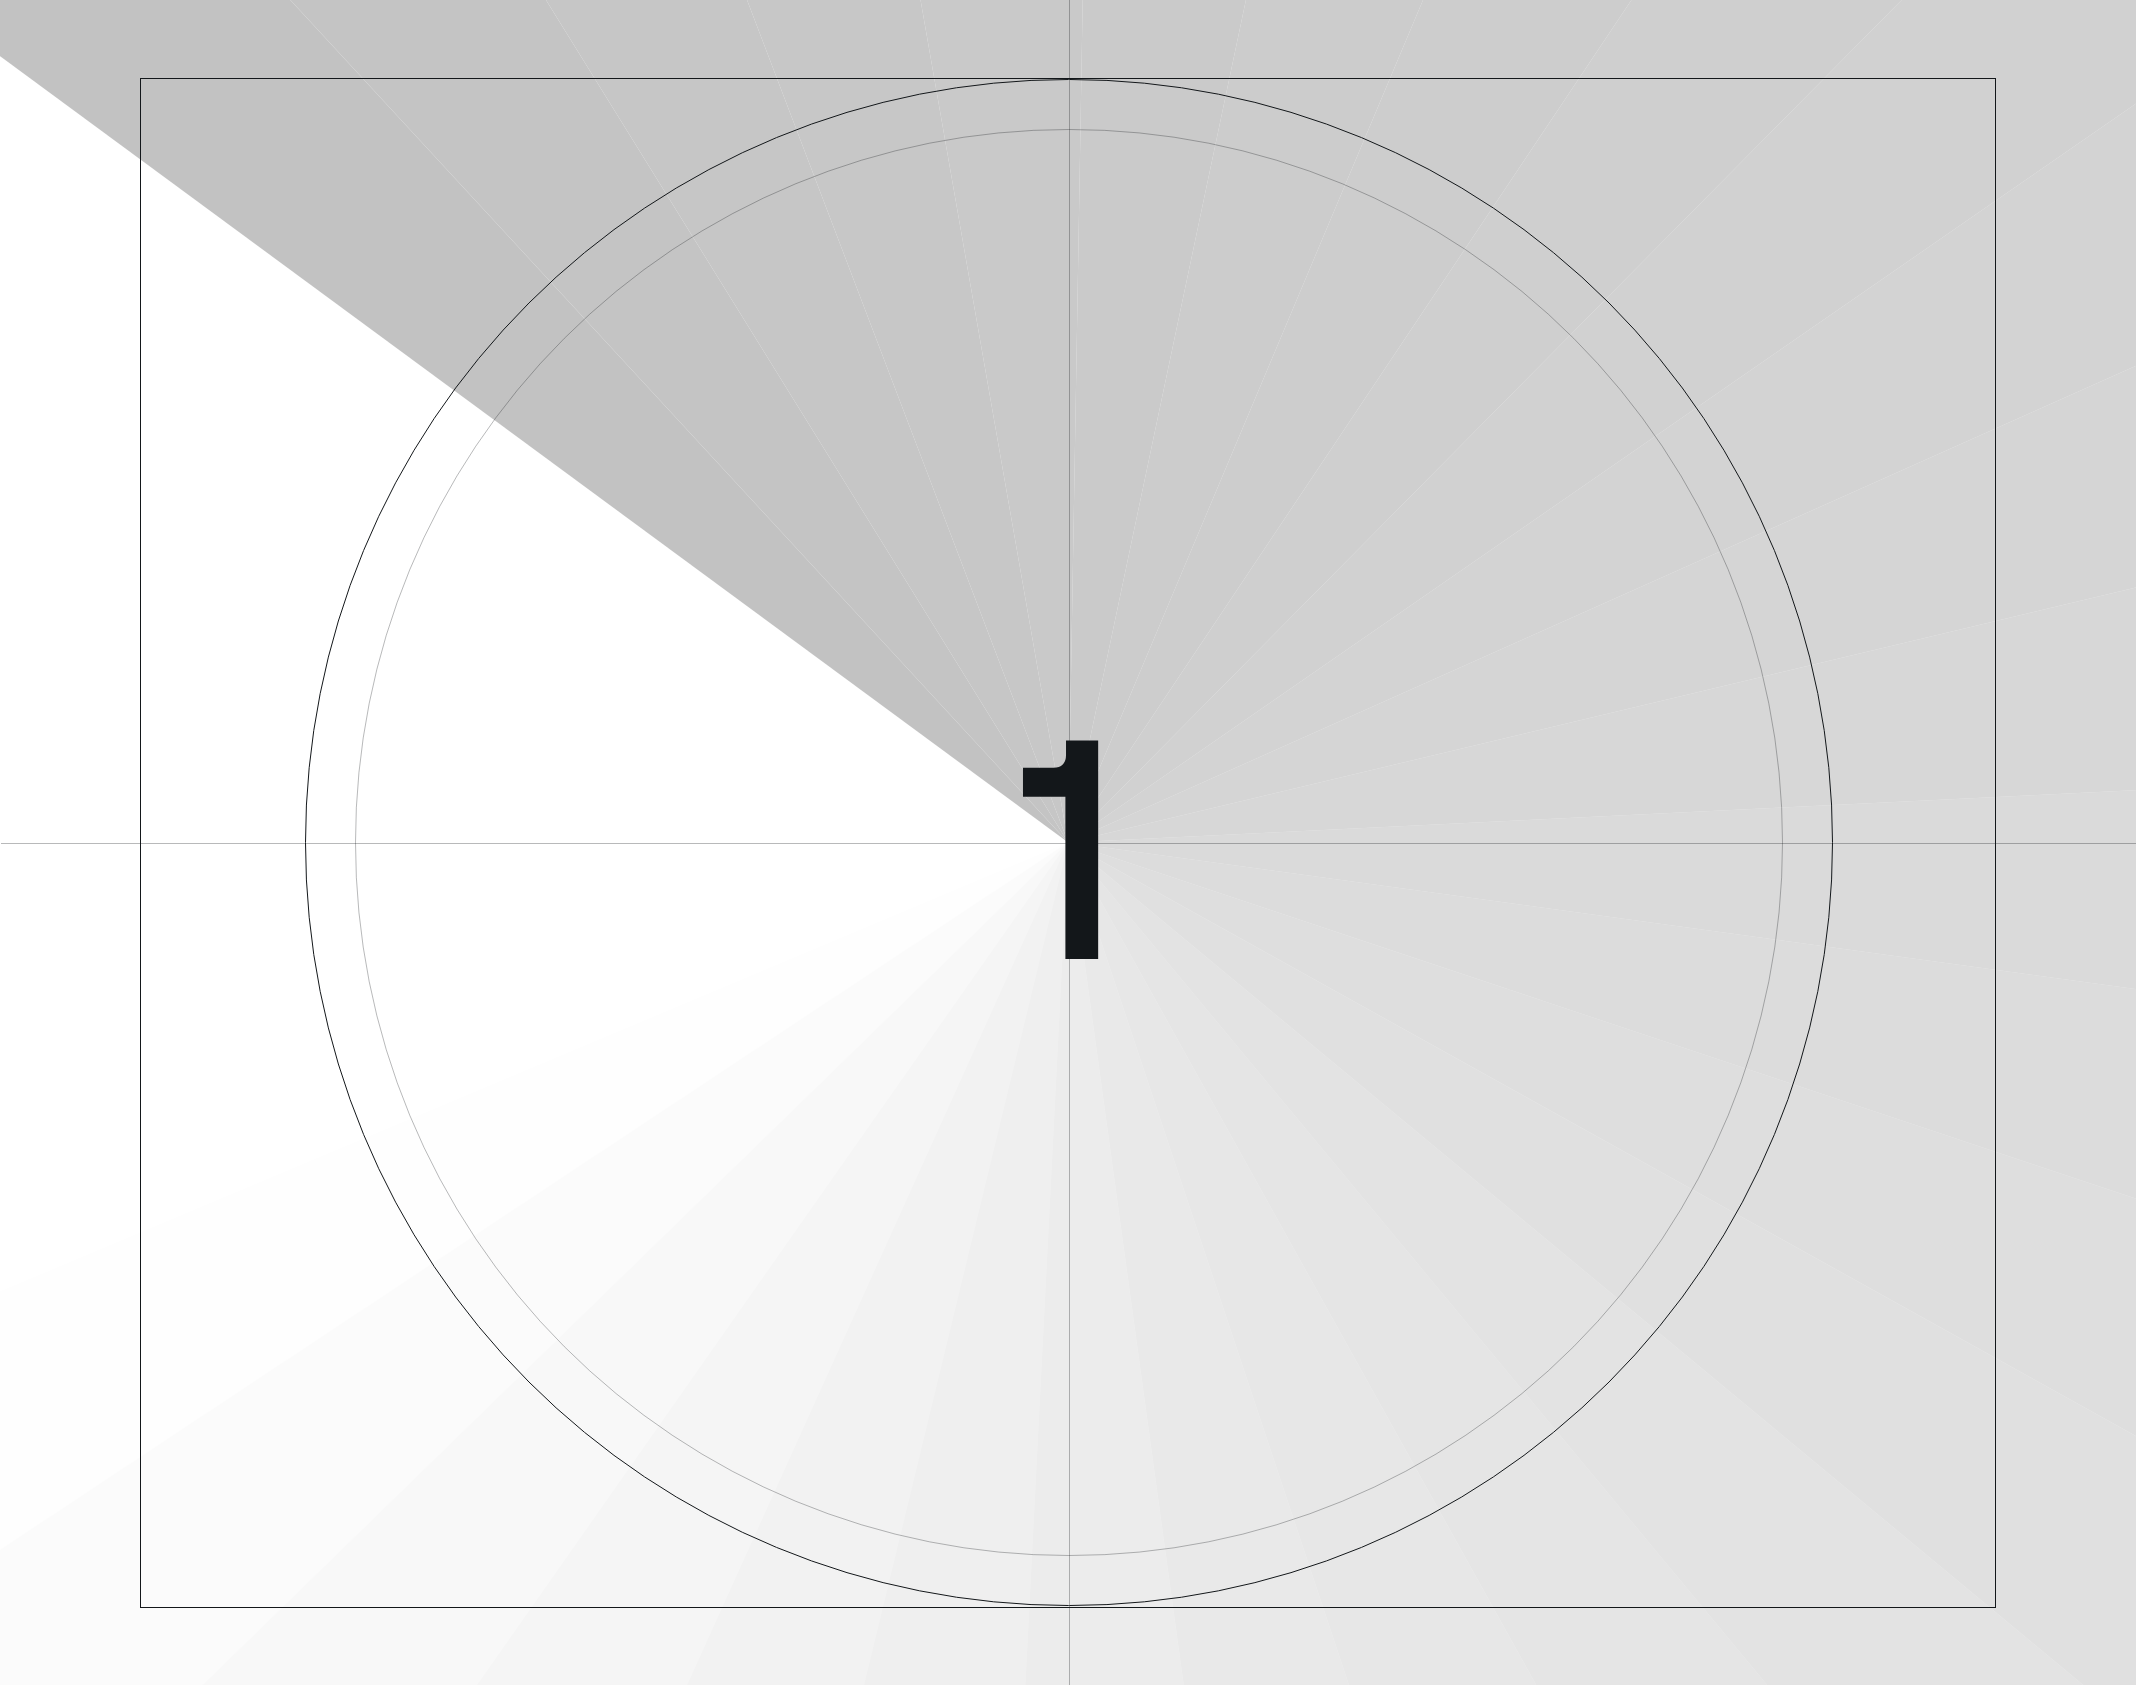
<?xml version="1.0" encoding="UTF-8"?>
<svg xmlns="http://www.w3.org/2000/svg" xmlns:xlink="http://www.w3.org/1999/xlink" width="2136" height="1685">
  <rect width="100%" height="100%" fill="#ffffff" />
  <image x="0" y="0" width="2136" height="1685" xlink:href="image1.png" />
  <rect x="1" y="843" width="2135" height="1" fill="#13171a" fill-opacity="0.3" />
  <rect x="1069" width="1" height="1685" fill="#13171a" fill-opacity="0.3" />
  <rect x="140.5" y="78.5" width="1855" height="1529" fill="none" stroke="#13171a" />
  <rect x="305.5" y="79.5" width="1527" height="1526" rx="763" fill="none" stroke="#13171a" />
  <rect x="355.5" y="129.5" width="1427" height="1426" rx="713" fill="none" stroke="#13171a" stroke-opacity="0.3" />
  <text x="1013" y="959" style="font-family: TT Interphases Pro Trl; font-size: 312px; font-weight: 500; fill: #13171a">1</text>
</svg>
